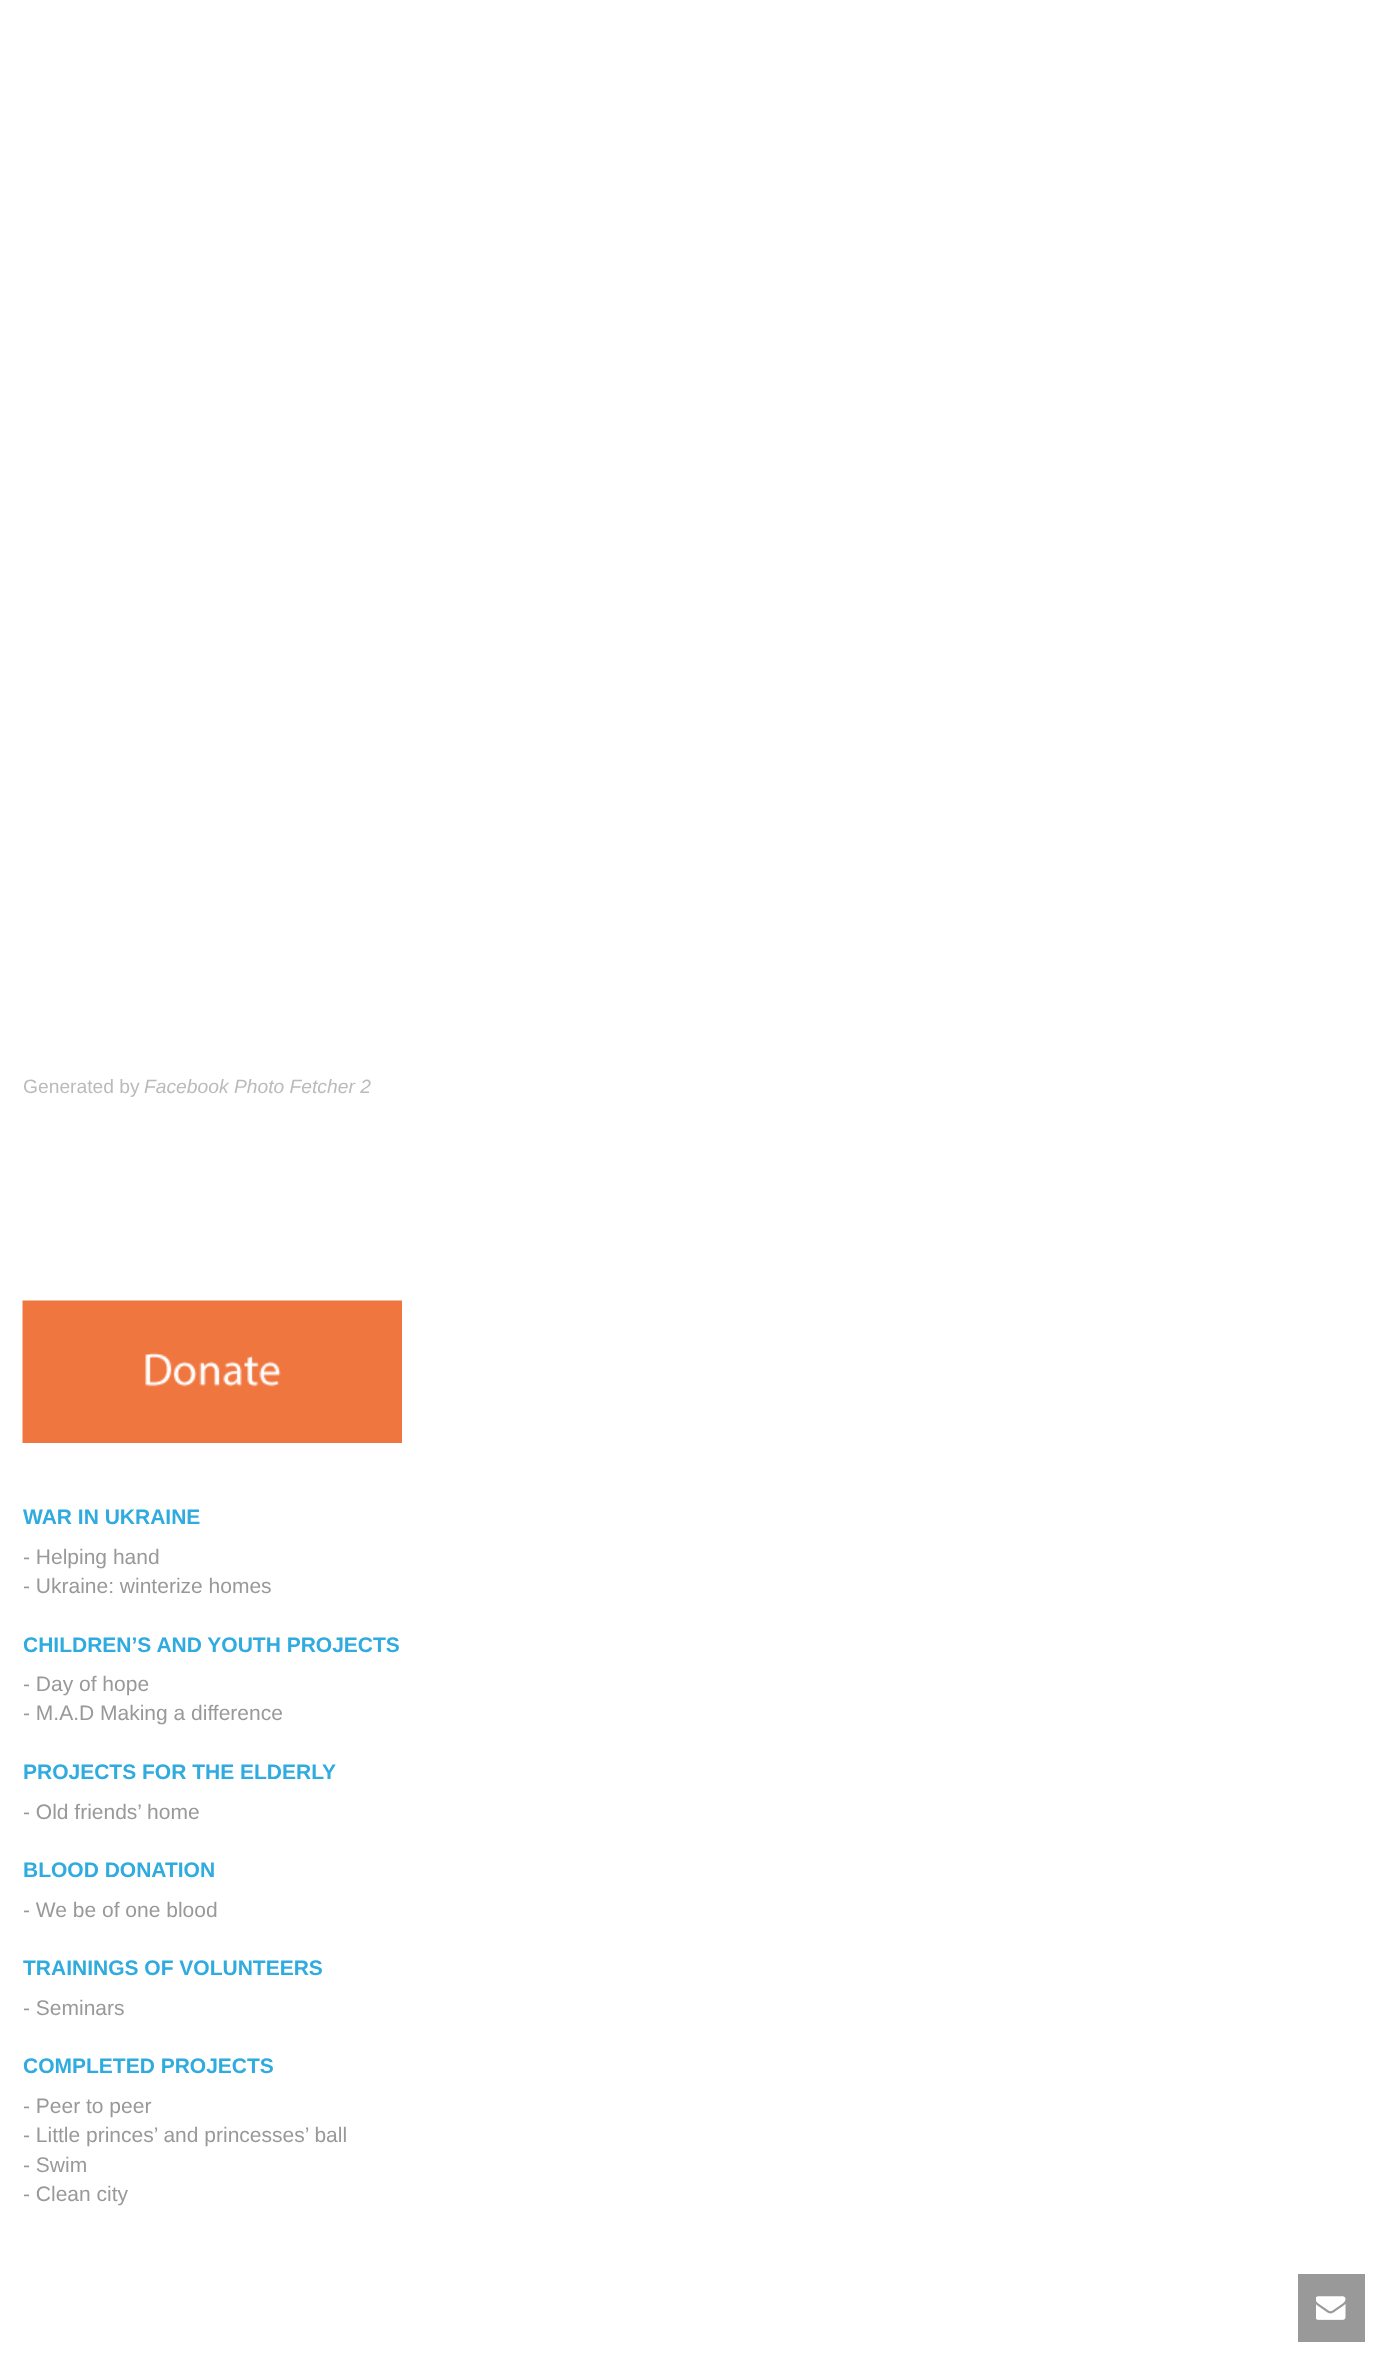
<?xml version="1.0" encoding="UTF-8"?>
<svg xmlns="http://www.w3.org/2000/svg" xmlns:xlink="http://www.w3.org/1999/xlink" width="1398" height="2363">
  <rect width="100%" height="100%" fill="#ffffff" />
  <image x="22" y="1300" width="380" height="143" xlink:href="image1.png" />
  <rect x="1298" y="2274" width="67" height="68" fill="#999999" />
  <image x="1316" y="2296" width="30" height="24" xlink:href="image2.png" />
  <text x="23" y="1093" style="font-family: Liberation Sans; font-size: 19.25px; fill: #bbbbbb">Generated by</text>
  <text x="144" y="1093" style="font-family: Liberation Sans; font-size: 19.25px; font-style: italic; fill: #bbbbbb">Facebook Photo Fetcher 2</text>
  <text x="23" y="1524" style="font-family: Liberation Sans; font-size: 21px; font-weight: bold; fill: #30abdf">WAR IN UKRAINE</text>
  <text x="23" y="1564" style="font-family: Liberation Sans; font-size: 21px; fill: #999999">- Helping hand</text>
  <text x="23" y="1593" style="font-family: Liberation Sans; font-size: 21px; fill: #999999">- Ukraine: winterize homes</text>
  <text x="23" y="1652" style="font-family: Liberation Sans; font-size: 21px; font-weight: bold; fill: #30abdf">CHILDREN’S AND YOUTH PROJECTS</text>
  <text x="23" y="1691" style="font-family: Liberation Sans; font-size: 21px; fill: #999999">- Day of hope</text>
  <text x="23" y="1720" style="font-family: Liberation Sans; font-size: 21px; fill: #999999">- M.A.D Making a difference</text>
  <text x="23" y="1779" style="font-family: Liberation Sans; font-size: 21px; font-weight: bold; fill: #30abdf">PROJECTS FOR THE ELDERLY</text>
  <text x="23" y="1819" style="font-family: Liberation Sans; font-size: 21px; fill: #999999">- Old friends’ home</text>
  <text x="23" y="1877" style="font-family: Liberation Sans; font-size: 21px; font-weight: bold; fill: #30abdf">BLOOD DONATION</text>
  <text x="23" y="1917" style="font-family: Liberation Sans; font-size: 21px; fill: #999999">- We be of one blood</text>
  <text x="23" y="1975" style="font-family: Liberation Sans; font-size: 21px; font-weight: bold; fill: #30abdf">TRAININGS OF VOLUNTEERS</text>
  <text x="23" y="2015" style="font-family: Liberation Sans; font-size: 21px; fill: #999999">- Seminars</text>
  <text x="23" y="2073" style="font-family: Liberation Sans; font-size: 21px; font-weight: bold; fill: #30abdf">COMPLETED PROJECTS</text>
  <text x="23" y="2113" style="font-family: Liberation Sans; font-size: 21px; fill: #999999">- Peer to peer</text>
  <text x="23" y="2142" style="font-family: Liberation Sans; font-size: 21px; fill: #999999">- Little princes’ and princesses’ ball</text>
  <text x="23" y="2172" style="font-family: Liberation Sans; font-size: 21px; fill: #999999">- Swim</text>
  <text x="23" y="2201" style="font-family: Liberation Sans; font-size: 21px; fill: #999999">- Clean city</text>
</svg>
